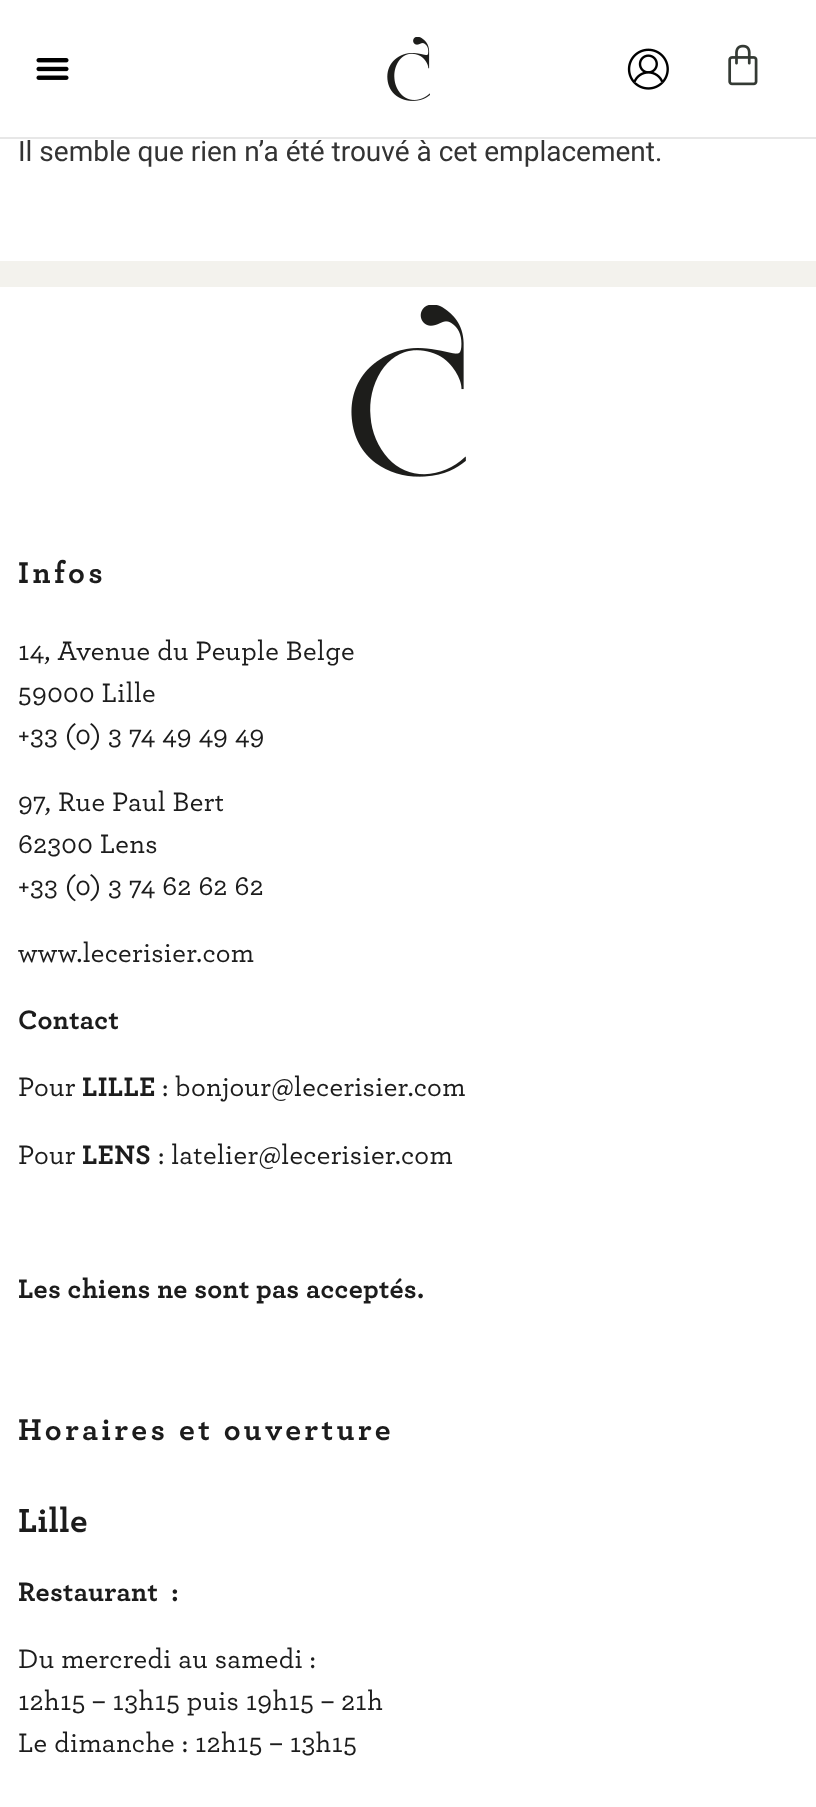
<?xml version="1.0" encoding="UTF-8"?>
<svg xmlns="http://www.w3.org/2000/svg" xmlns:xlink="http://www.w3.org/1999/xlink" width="816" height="1807">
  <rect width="100%" height="100%" fill="#ffffff" />
  <rect y="137" width="816" height="2" fill="#e7e7e7" />
  <image x="36" y="58" width="33" height="22" xlink:href="image1.png" />
  <image x="387" y="37" width="43" height="64" xlink:href="image2.png" />
  <image x="627" y="48" width="42" height="42" xlink:href="image3.png" />
  <image x="728" y="44" width="30" height="42" xlink:href="image4.png" />
  <rect y="261" width="816" height="26" fill="#f3f2ed" />
  <image x="351" y="305" width="115" height="172" xlink:href="image5.png" />
  <text x="18" y="161" style="font-family: Roboto; font-size: 28px; fill: #333333">Il semble que rien n’a été trouvé à cet emplacement.</text>
  <text x="18" y="583" style="font-family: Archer; font-size: 31.5px; font-weight: bold; letter-spacing: 3.5px; fill: #1c1c1c">Infos</text>
  <text x="18" y="660" style="font-family: Archer; font-size: 28px; font-weight: 500; letter-spacing: 0.35px; fill: #1c1c1c">14, Avenue du Peuple Belge</text>
  <text x="18" y="702" style="font-family: Archer; font-size: 28px; font-weight: 500; letter-spacing: 0.35px; fill: #1c1c1c">59000 Lille</text>
  <text x="18" y="744" style="font-family: Archer; font-size: 28px; font-weight: 500; letter-spacing: 0.35px; fill: #1c1c1c">+33 (0) 3 74 49 49 49</text>
  <text x="18" y="811" style="font-family: Archer; font-size: 28px; font-weight: 500; letter-spacing: 0.35px; fill: #1c1c1c">97, Rue Paul Bert</text>
  <text x="18" y="853" style="font-family: Archer; font-size: 28px; font-weight: 500; letter-spacing: 0.35px; fill: #1c1c1c">62300 Lens</text>
  <text x="18" y="895" style="font-family: Archer; font-size: 28px; font-weight: 500; letter-spacing: 0.35px; fill: #1c1c1c">+33 (0) 3 74 62 62 62</text>
  <text x="18" y="962" style="font-family: Archer; font-size: 28px; font-weight: 500; letter-spacing: 0.35px; fill: #1c1c1c">www.lecerisier.com</text>
  <text x="18" y="1029" style="font-family: Archer; font-size: 28px; font-weight: bold; letter-spacing: 0.35px; fill: #1c1c1c">Contact</text>
  <text x="18" y="1096" style="font-family: Archer; font-size: 28px; font-weight: 500; letter-spacing: 0.35px; fill: #1c1c1c">Pour</text>
  <text x="82" y="1096" style="font-family: Archer; font-size: 28px; font-weight: bold; letter-spacing: 0.35px; fill: #1c1c1c">LILLE</text>
  <text x="162" y="1096" style="font-family: Archer; font-size: 28px; font-weight: 500; letter-spacing: 0.35px; fill: #1c1c1c">: bonjour@lecerisier.com</text>
  <text x="18" y="1164" style="font-family: Archer; font-size: 28px; font-weight: 500; letter-spacing: 0.35px; fill: #1c1c1c">Pour</text>
  <text x="82" y="1164" style="font-family: Archer; font-size: 28px; font-weight: bold; letter-spacing: 0.35px; fill: #1c1c1c">LENS</text>
  <text x="158" y="1164" style="font-family: Archer; font-size: 28px; font-weight: 500; letter-spacing: 0.35px; fill: #1c1c1c">: latelier@lecerisier.com</text>
  <text x="18" y="1298" style="font-family: Archer; font-size: 28px; font-weight: bold; letter-spacing: 0.35px; fill: #1c1c1c">Les chiens ne sont pas acceptés.</text>
  <text x="18" y="1440" style="font-family: Archer; font-size: 31.5px; font-weight: bold; letter-spacing: 3.5px; fill: #1c1c1c">Horaires et ouverture</text>
  <text x="18" y="1532" style="font-family: Archer; font-size: 35px; font-weight: bold; letter-spacing: 0.35px; fill: #1c1c1c">Lille</text>
  <text x="18" y="1601" style="font-family: Archer; font-size: 28px; font-weight: bold; letter-spacing: 0.35px; fill: #1c1c1c" xml:space="preserve">Restaurant  :</text>
  <text x="18" y="1668" style="font-family: Archer; font-size: 28px; font-weight: 500; letter-spacing: 0.35px; fill: #1c1c1c">Du mercredi au samedi :</text>
  <text x="18" y="1710" style="font-family: Archer; font-size: 28px; font-weight: 500; letter-spacing: 0.35px; fill: #1c1c1c">12h15 – 13h15 puis 19h15 – 21h</text>
  <text x="18" y="1752" style="font-family: Archer; font-size: 28px; font-weight: 500; letter-spacing: 0.35px; fill: #1c1c1c">Le dimanche : 12h15 – 13h15</text>
</svg>
